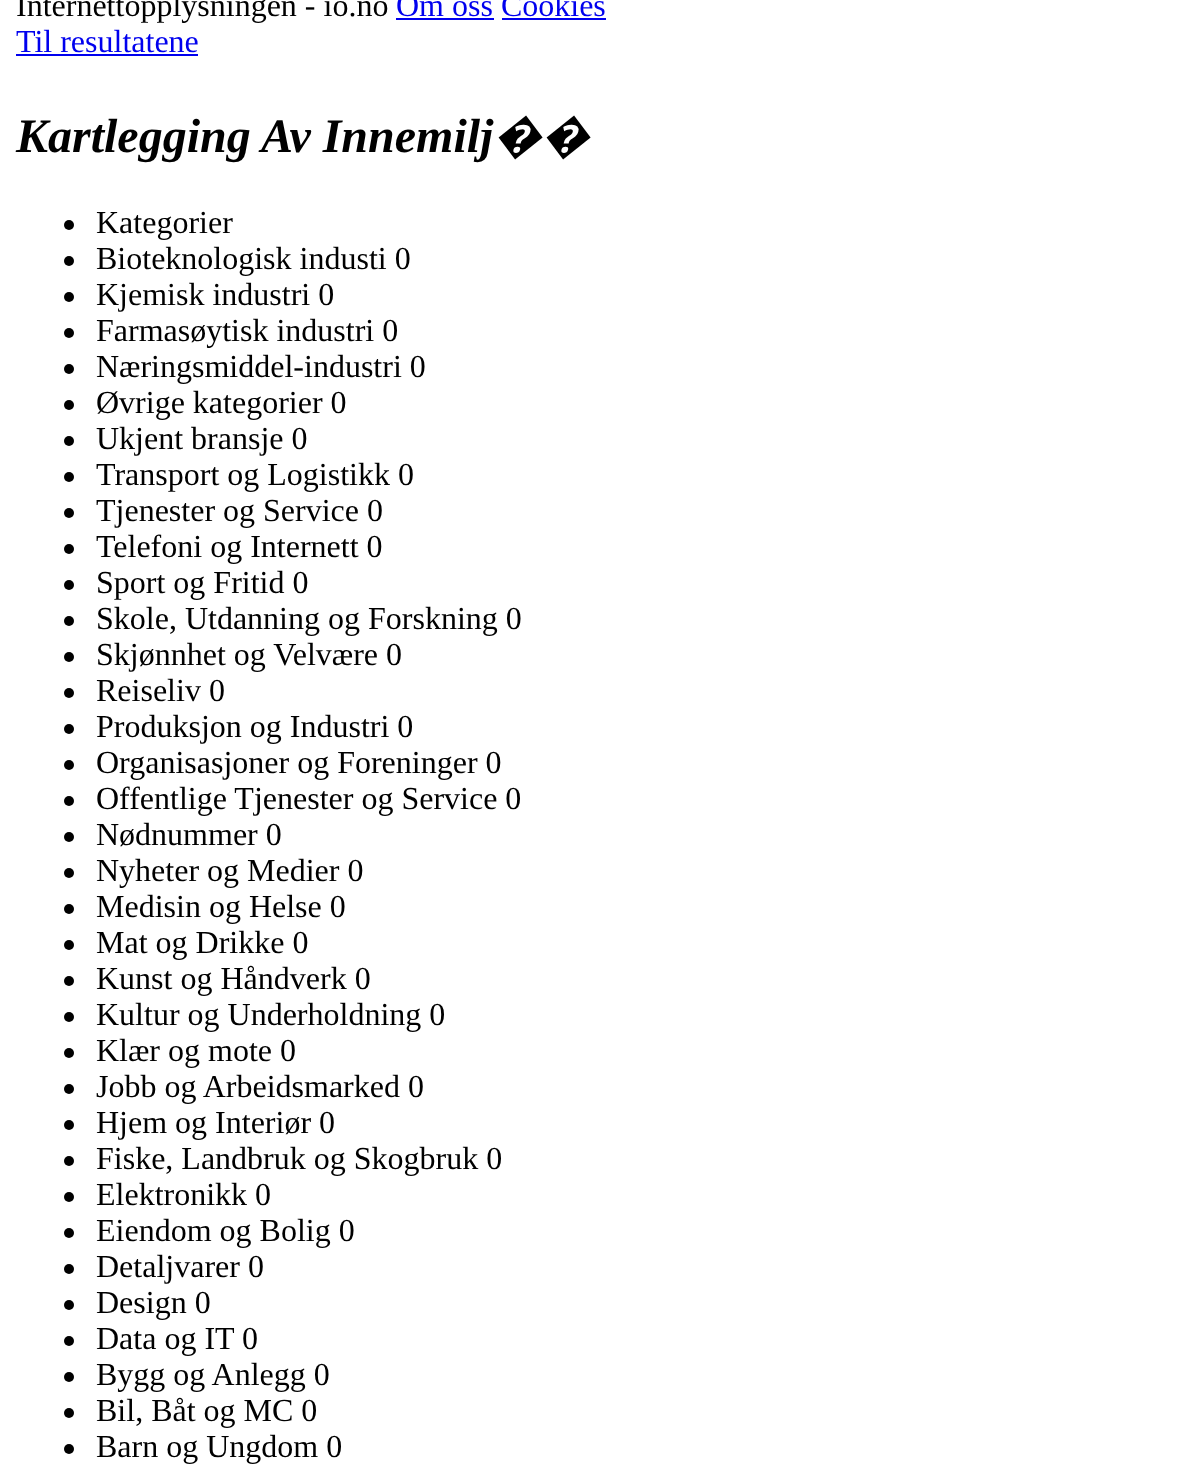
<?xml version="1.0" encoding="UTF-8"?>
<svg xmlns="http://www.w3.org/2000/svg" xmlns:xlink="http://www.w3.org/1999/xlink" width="1198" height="1465">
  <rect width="100%" height="100%" fill="#ffffff" />
  <rect x="396" y="18" width="98" height="2" fill="#0000ee" />
  <rect x="502" y="18" width="104" height="2" fill="#0000ee" />
  <rect x="16" y="54" width="182" height="2" fill="#0000ee" />
  <circle cx="69" cy="225" r="5" fill="#000000" />
  <circle cx="69" cy="261" r="5" fill="#000000" />
  <circle cx="69" cy="297" r="5" fill="#000000" />
  <circle cx="69" cy="333" r="5" fill="#000000" />
  <circle cx="69" cy="369" r="5" fill="#000000" />
  <circle cx="69" cy="405" r="5" fill="#000000" />
  <circle cx="69" cy="441" r="5" fill="#000000" />
  <circle cx="69" cy="477" r="5" fill="#000000" />
  <circle cx="69" cy="513" r="5" fill="#000000" />
  <circle cx="69" cy="549" r="5" fill="#000000" />
  <circle cx="69" cy="585" r="5" fill="#000000" />
  <circle cx="69" cy="621" r="5" fill="#000000" />
  <circle cx="69" cy="657" r="5" fill="#000000" />
  <circle cx="69" cy="693" r="5" fill="#000000" />
  <circle cx="69" cy="729" r="5" fill="#000000" />
  <circle cx="69" cy="765" r="5" fill="#000000" />
  <circle cx="69" cy="801" r="5" fill="#000000" />
  <circle cx="69" cy="837" r="5" fill="#000000" />
  <circle cx="69" cy="873" r="5" fill="#000000" />
  <circle cx="69" cy="909" r="5" fill="#000000" />
  <circle cx="69" cy="945" r="5" fill="#000000" />
  <circle cx="69" cy="981" r="5" fill="#000000" />
  <circle cx="69" cy="1017" r="5" fill="#000000" />
  <circle cx="69" cy="1053" r="5" fill="#000000" />
  <circle cx="69" cy="1089" r="5" fill="#000000" />
  <circle cx="69" cy="1125" r="5" fill="#000000" />
  <circle cx="69" cy="1161" r="5" fill="#000000" />
  <circle cx="69" cy="1197" r="5" fill="#000000" />
  <circle cx="69" cy="1233" r="5" fill="#000000" />
  <circle cx="69" cy="1269" r="5" fill="#000000" />
  <circle cx="69" cy="1305" r="5" fill="#000000" />
  <circle cx="69" cy="1341" r="5" fill="#000000" />
  <circle cx="69" cy="1377" r="5" fill="#000000" />
  <circle cx="69" cy="1413" r="5" fill="#000000" />
  <circle cx="69" cy="1449" r="5" fill="#000000" />
  <text x="16" y="16" style="font-family: Liberation Serif; font-size: 32px; fill: #000000">Internettopplysningen - io.no</text>
  <text x="396" y="16" style="font-family: Liberation Serif; font-size: 32px; fill: #0000ee">Om oss Cookies</text>
  <text x="16" y="52" style="font-family: Liberation Serif; font-size: 32px; fill: #0000ee">Til resultatene</text>
  <text x="16" y="152" style="font-family: Liberation Serif; font-size: 48px; font-weight: bold; font-style: italic; fill: #000000">Kartlegging Av Innemilj</text>
  <text x="493" y="152" style="font-family: Noto Sans; font-size: 48px; font-weight: bold; font-style: italic; fill: #000000">��</text>
  <text x="96" y="233" style="font-family: Liberation Serif; font-size: 32px; fill: #000000">Kategorier</text>
  <text x="96" y="269" style="font-family: Liberation Serif; font-size: 32px; fill: #000000">Bioteknologisk industi 0</text>
  <text x="96" y="305" style="font-family: Liberation Serif; font-size: 32px; fill: #000000">Kjemisk industri 0</text>
  <text x="96" y="341" style="font-family: Liberation Serif; font-size: 32px; fill: #000000">Farmasøytisk industri 0</text>
  <text x="96" y="377" style="font-family: Liberation Serif; font-size: 32px; fill: #000000">Næringsmiddel-industri 0</text>
  <text x="96" y="413" style="font-family: Liberation Serif; font-size: 32px; fill: #000000">Øvrige kategorier 0</text>
  <text x="96" y="449" style="font-family: Liberation Serif; font-size: 32px; fill: #000000">Ukjent bransje 0</text>
  <text x="96" y="485" style="font-family: Liberation Serif; font-size: 32px; fill: #000000">Transport og Logistikk 0</text>
  <text x="96" y="521" style="font-family: Liberation Serif; font-size: 32px; fill: #000000">Tjenester og Service 0</text>
  <text x="96" y="557" style="font-family: Liberation Serif; font-size: 32px; fill: #000000">Telefoni og Internett 0</text>
  <text x="96" y="593" style="font-family: Liberation Serif; font-size: 32px; fill: #000000">Sport og Fritid 0</text>
  <text x="96" y="629" style="font-family: Liberation Serif; font-size: 32px; fill: #000000">Skole, Utdanning og Forskning 0</text>
  <text x="96" y="665" style="font-family: Liberation Serif; font-size: 32px; fill: #000000">Skjønnhet og Velvære 0</text>
  <text x="96" y="701" style="font-family: Liberation Serif; font-size: 32px; fill: #000000">Reiseliv 0</text>
  <text x="96" y="737" style="font-family: Liberation Serif; font-size: 32px; fill: #000000">Produksjon og Industri 0</text>
  <text x="96" y="773" style="font-family: Liberation Serif; font-size: 32px; fill: #000000">Organisasjoner og Foreninger 0</text>
  <text x="96" y="809" style="font-family: Liberation Serif; font-size: 32px; fill: #000000">Offentlige Tjenester og Service 0</text>
  <text x="96" y="845" style="font-family: Liberation Serif; font-size: 32px; fill: #000000">Nødnummer 0</text>
  <text x="96" y="881" style="font-family: Liberation Serif; font-size: 32px; fill: #000000">Nyheter og Medier 0</text>
  <text x="96" y="917" style="font-family: Liberation Serif; font-size: 32px; fill: #000000">Medisin og Helse 0</text>
  <text x="96" y="953" style="font-family: Liberation Serif; font-size: 32px; fill: #000000">Mat og Drikke 0</text>
  <text x="96" y="989" style="font-family: Liberation Serif; font-size: 32px; fill: #000000">Kunst og Håndverk 0</text>
  <text x="96" y="1025" style="font-family: Liberation Serif; font-size: 32px; fill: #000000">Kultur og Underholdning 0</text>
  <text x="96" y="1061" style="font-family: Liberation Serif; font-size: 32px; fill: #000000">Klær og mote 0</text>
  <text x="96" y="1097" style="font-family: Liberation Serif; font-size: 32px; fill: #000000">Jobb og Arbeidsmarked 0</text>
  <text x="96" y="1133" style="font-family: Liberation Serif; font-size: 32px; fill: #000000">Hjem og Interiør 0</text>
  <text x="96" y="1169" style="font-family: Liberation Serif; font-size: 32px; fill: #000000">Fiske, Landbruk og Skogbruk 0</text>
  <text x="96" y="1205" style="font-family: Liberation Serif; font-size: 32px; fill: #000000">Elektronikk 0</text>
  <text x="96" y="1241" style="font-family: Liberation Serif; font-size: 32px; fill: #000000">Eiendom og Bolig 0</text>
  <text x="96" y="1277" style="font-family: Liberation Serif; font-size: 32px; fill: #000000">Detaljvarer 0</text>
  <text x="96" y="1313" style="font-family: Liberation Serif; font-size: 32px; fill: #000000">Design 0</text>
  <text x="96" y="1349" style="font-family: Liberation Serif; font-size: 32px; fill: #000000">Data og IT 0</text>
  <text x="96" y="1385" style="font-family: Liberation Serif; font-size: 32px; fill: #000000">Bygg og Anlegg 0</text>
  <text x="96" y="1421" style="font-family: Liberation Serif; font-size: 32px; fill: #000000">Bil, Båt og MC 0</text>
  <text x="96" y="1457" style="font-family: Liberation Serif; font-size: 32px; fill: #000000">Barn og Ungdom 0</text>
</svg>
